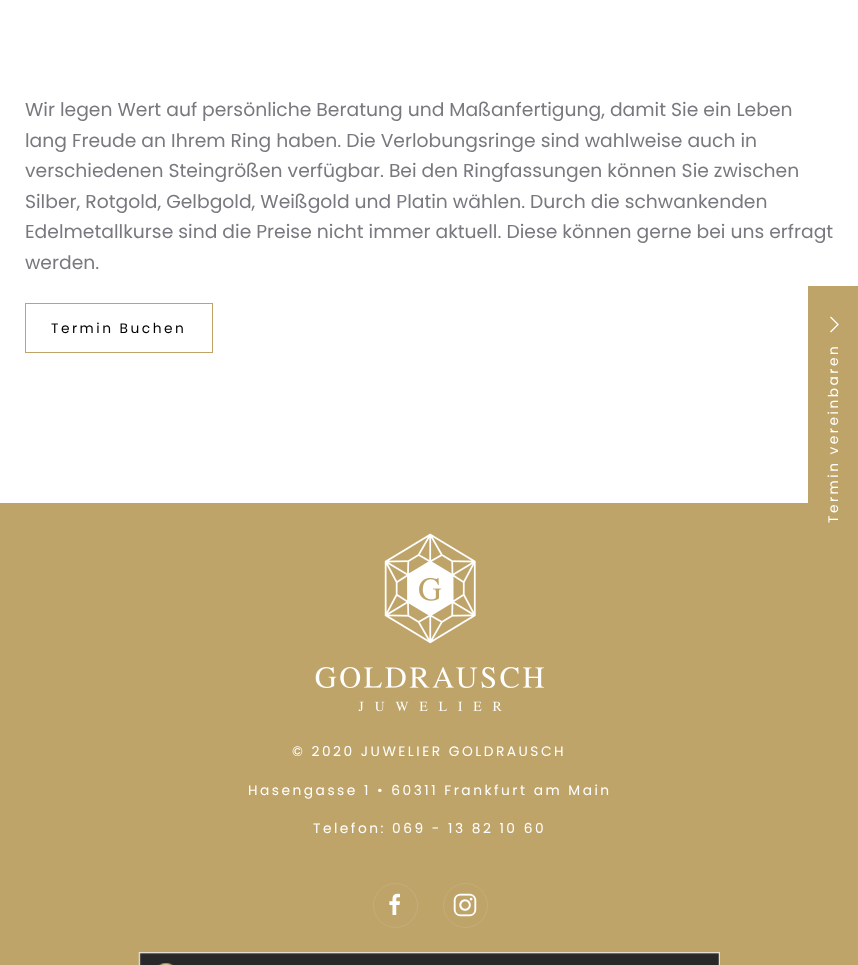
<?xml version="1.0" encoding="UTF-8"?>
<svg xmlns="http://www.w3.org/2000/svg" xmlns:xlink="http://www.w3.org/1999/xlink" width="858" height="965">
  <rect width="100%" height="100%" fill="#ffffff" />
  <rect x="25.5" y="303.5" width="187" height="49" fill="none" stroke="#bfa46a" />
  <rect y="503" width="858" height="462" fill="#bfa46a" />
  <image x="315" y="533" width="229" height="179" xlink:href="image1.png" />
  <circle cx="395.5" cy="905.5" r="22" fill="none" stroke="#c5ad79" />
  <image x="389" y="893" width="11" height="22" xlink:href="image2.png" />
  <circle cx="465.5" cy="905.5" r="22" fill="none" stroke="#c5ad79" />
  <image x="453" y="893" width="24" height="24" xlink:href="image3.png" />
  <image x="138" y="952" width="582" height="13" xlink:href="image4.png" />
  <rect x="808" y="286" width="50" height="217" fill="#bfa46a" />
  <path d="M 830.5 317 l 7.5 7.5 l -7.5 7.5" fill="none" stroke="#ffffff" stroke-width="1.3" />
  <text x="25" y="116" style="font-family: Poppins; font-size: 18.75px; fill: #78797f">Wir legen Wert auf persönliche Beratung und Maßanfertigung, damit Sie ein Leben</text>
  <text x="25" y="147" style="font-family: Poppins; font-size: 18.75px; fill: #78797f">lang Freude an Ihrem Ring haben. Die Verlobungsringe sind wahlweise auch in</text>
  <text x="25" y="177" style="font-family: Poppins; font-size: 18.75px; fill: #78797f">verschiedenen Steingrößen verfügbar. Bei den Ringfassungen können Sie zwischen</text>
  <text x="25" y="208" style="font-family: Poppins; font-size: 18.75px; fill: #78797f">Silber, Rotgold, Gelbgold, Weißgold und Platin wählen. Durch die schwankenden</text>
  <text x="25" y="238" style="font-family: Poppins; font-size: 18.75px; fill: #78797f">Edelmetallkurse sind die Preise nicht immer aktuell. Diese können gerne bei uns erfragt</text>
  <text x="25" y="269" style="font-family: Poppins; font-size: 18.75px; fill: #78797f">werden.</text>
  <text x="51" y="333" style="font-family: Poppins; font-size: 13.75px; letter-spacing: 2.5px; fill: #000000">Termin Buchen</text>
  <text x="292" y="756" style="font-family: Poppins; font-size: 13.75px; letter-spacing: 2.5px; fill: #ffffff">© 2020 JUWELIER GOLDRAUSCH</text>
  <text x="248" y="795" style="font-family: Poppins; font-size: 13.75px; letter-spacing: 2.5px; fill: #ffffff">Hasengasse 1 • 60311 Frankfurt am Main</text>
  <text x="313" y="833" style="font-family: Poppins; font-size: 13.75px; letter-spacing: 2.5px; fill: #ffffff">Telefon: 069 - 13 82 10 60</text>
  <text x="838" y="523" transform="rotate(-90 838 523)" style="font-family: Poppins; font-size: 13.75px; letter-spacing: 2.5px; fill: #ffffff">Termin vereinbaren</text>
</svg>
